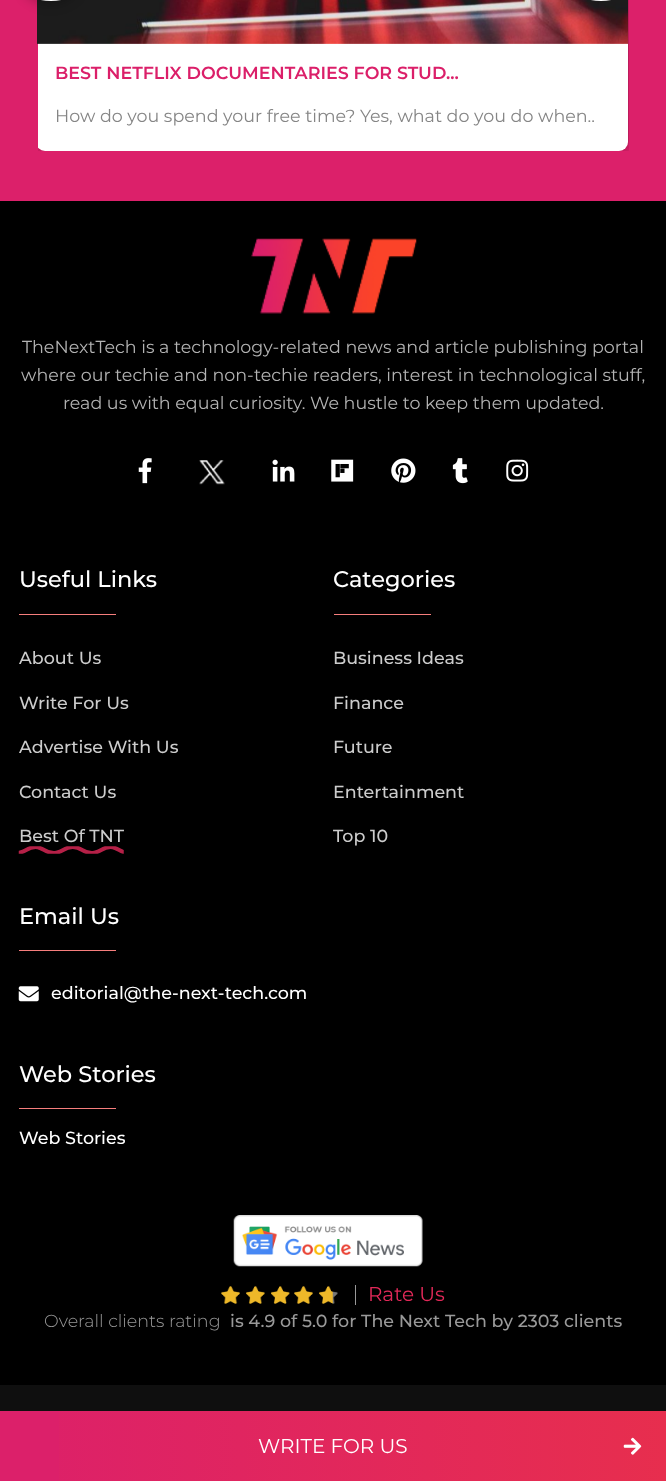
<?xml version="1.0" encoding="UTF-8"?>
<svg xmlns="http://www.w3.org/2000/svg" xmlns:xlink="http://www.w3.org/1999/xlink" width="666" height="1481">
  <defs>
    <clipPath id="clip1"><rect x="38" y="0" width="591" height="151" /></clipPath>
    <clipPath id="clip2"><rect x="38" width="591" height="151" /></clipPath>
    <linearGradient id="g1" gradientUnits="userSpaceOnUse" x1="0" y1="1411" x2="666" y2="1411"><stop offset="0" stop-color="#dc206a" /><stop offset="1" stop-color="#e72e4e" /></linearGradient>
  </defs>
  <rect width="100%" height="100%" fill="#dc206a" />
  <g clip-path="url(#clip1)">
    <rect x="36" y="-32" width="592" height="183" rx="9" fill="#000000" fill-opacity="0.3" filter="blur(7.5px)" />
  </g>
  <g clip-path="url(#clip2)">
    <rect x="36" y="-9" width="592" height="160" rx="9" fill="#ffffff" />
  </g>
  <image x="37" y="0" width="591" height="44" xlink:href="image1.png" />
  <rect x="20" y="-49" width="61" height="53" rx="30.5" fill="#000000" fill-opacity="0.25" filter="blur(6px)" />
  <rect x="23" y="-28" width="56" height="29" rx="28" fill="#ffffff" />
  <rect x="573" y="-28" width="56" height="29" rx="28" fill="#ffffff" />
  <rect y="201" width="666" height="1184" fill="#000000" />
  <image x="251" y="238" width="166" height="76" xlink:href="image2.png" />
  <image x="138" y="458" width="14" height="26" xlink:href="image3.png" />
  <image x="199" y="460" width="26" height="25" xlink:href="image4.png" />
  <image x="272" y="459" width="23" height="23" xlink:href="image5.png" />
  <image x="331" y="459" width="23" height="23" xlink:href="image6.png" />
  <image x="391" y="458" width="25" height="25" xlink:href="image7.png" />
  <image x="452" y="458" width="16" height="26" xlink:href="image8.png" />
  <image x="506" y="459" width="23" height="23" xlink:href="image9.png" />
  <rect x="19" y="614" width="97" height="1" fill="#f67e7d" />
  <image x="18" y="846" width="106" height="8" xlink:href="image10.png" />
  <rect x="334" y="614" width="97" height="1" fill="#f67e7d" />
  <rect x="19" y="950" width="97" height="1" fill="#f67e7d" />
  <image x="18" y="986" width="21" height="16" xlink:href="image11.png" />
  <rect x="19" y="1108" width="97" height="1" fill="#f67e7d" />
  <image x="233" y="1215" width="190" height="52" xlink:href="image12.png" />
  <image x="221" y="1286" width="117" height="18" xlink:href="image13.png" />
  <rect x="355" y="1285" width="1" height="20" fill="#999999" />
  <rect y="1385" width="666" height="26" fill="#0f0f0f" />
  <rect x="59" y="1411" width="607" height="70" fill="url(#g1)" />
  <image x="623" y="1437" width="19" height="18" xlink:href="image14.png" />
  <text x="55" y="79" style="font-family: Montserrat; font-size: 17.5px; font-weight: 600; fill: #db1f69">BEST NETFLIX DOCUMENTARIES FOR STUD...</text>
  <text x="55" y="122" style="font-family: Montserrat; font-size: 17.5px; fill: #858585">How do you spend your free time? Yes, what do you do when..</text>
  <text x="22" y="353" style="font-family: Montserrat; font-size: 17.5px; fill: #b3b3b3">TheNextTech is a technology-related news and article publishing portal</text>
  <text x="21" y="381" style="font-family: Montserrat; font-size: 17.5px; fill: #b3b3b3">where our techie and non-techie readers, interest in technological stuff,</text>
  <text x="63" y="409" style="font-family: Montserrat; font-size: 17.5px; fill: #b3b3b3">read us with equal curiosity. We hustle to keep them updated.</text>
  <text x="19" y="587" style="font-family: Montserrat; font-size: 22.5px; font-weight: 500; fill: #ffffff">Useful Links</text>
  <text x="19" y="664" style="font-family: Montserrat; font-size: 17.5px; font-weight: 500; fill: #cccccc">About Us</text>
  <text x="19" y="709" style="font-family: Montserrat; font-size: 17.5px; font-weight: 500; fill: #cccccc">Write For Us</text>
  <text x="19" y="753" style="font-family: Montserrat; font-size: 17.5px; font-weight: 500; fill: #cccccc">Advertise With Us</text>
  <text x="19" y="798" style="font-family: Montserrat; font-size: 17.5px; font-weight: 500; fill: #cccccc">Contact Us</text>
  <text x="19" y="842" style="font-family: Montserrat; font-size: 17.5px; font-weight: 500; fill: #cccccc">Best Of TNT</text>
  <text x="333" y="587" style="font-family: Montserrat; font-size: 22.5px; font-weight: 500; fill: #ffffff">Categories</text>
  <text x="333" y="664" style="font-family: Montserrat; font-size: 17.5px; font-weight: 500; fill: #cccccc">Business Ideas</text>
  <text x="333" y="709" style="font-family: Montserrat; font-size: 17.5px; font-weight: 500; fill: #cccccc">Finance</text>
  <text x="333" y="753" style="font-family: Montserrat; font-size: 17.5px; font-weight: 500; fill: #cccccc">Future</text>
  <text x="333" y="798" style="font-family: Montserrat; font-size: 17.5px; font-weight: 500; fill: #cccccc">Entertainment</text>
  <text x="333" y="842" style="font-family: Montserrat; font-size: 17.5px; font-weight: 500; fill: #cccccc">Top 10</text>
  <text x="19" y="924" style="font-family: Montserrat; font-size: 22.5px; font-weight: 500; fill: #ffffff">Email Us</text>
  <text x="51" y="999" style="font-family: Montserrat; font-size: 17.5px; font-weight: 500; fill: #ffffff">editorial@the-next-tech.com</text>
  <text x="19" y="1082" style="font-family: Montserrat; font-size: 22.5px; font-weight: 500; fill: #ffffff">Web Stories</text>
  <text x="19" y="1144" style="font-family: Montserrat; font-size: 17.5px; font-weight: 500; fill: #ffffff">Web Stories</text>
  <text x="368" y="1301" style="font-family: Montserrat; font-size: 20px; fill: #e32959">Rate Us</text>
  <text x="44" y="1327" style="font-family: Montserrat; font-size: 17.5px; font-weight: 300; fill: #999999">Overall clients rating</text>
  <text x="230" y="1327" style="font-family: Montserrat; font-size: 17.5px; font-weight: 500; fill: #999999">is 4.9 of 5.0 for The Next Tech by 2303 clients</text>
  <text x="258" y="1453" style="font-family: Montserrat; font-size: 20px; fill: #ffffff">WRITE FOR US</text>
</svg>
